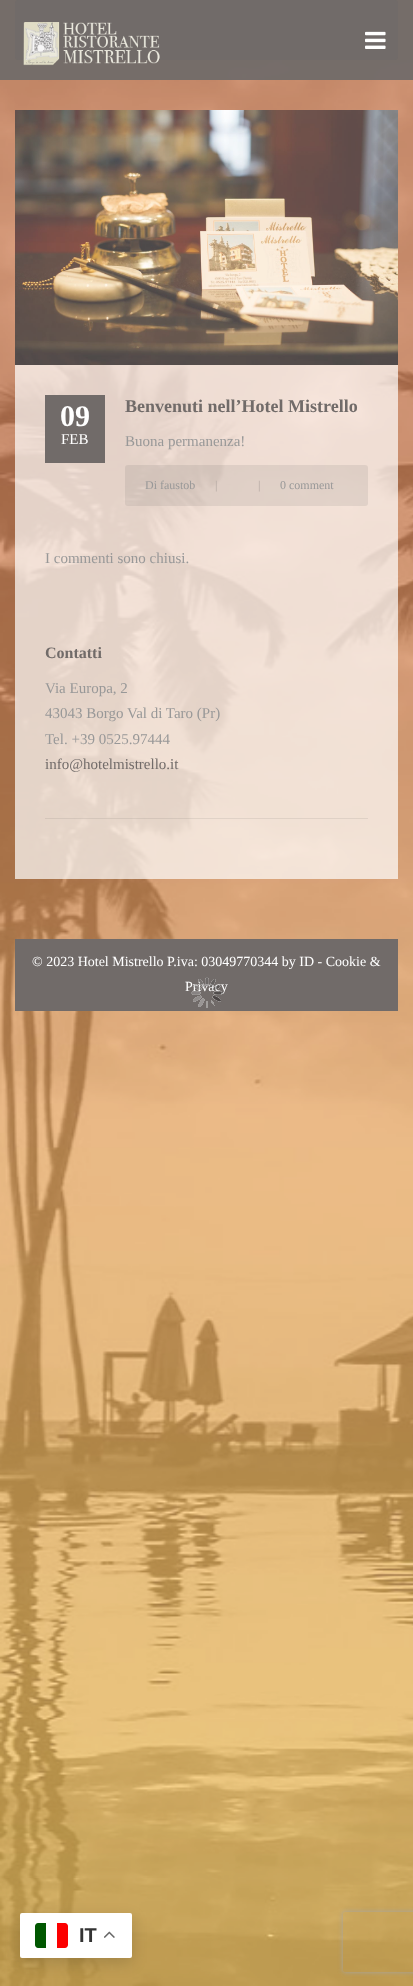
<?xml version="1.0" encoding="UTF-8"?>
<svg xmlns="http://www.w3.org/2000/svg" xmlns:xlink="http://www.w3.org/1999/xlink" width="413" height="1986">
  <defs>
    <clipPath id="clip1"><path d="M 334 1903 h 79 v 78 h -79 z m 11 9 h 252 c 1 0 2 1 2 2 v 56 c 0 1 -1 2 -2 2 h -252 c -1 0 -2 -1 -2 -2 v -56 c 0 -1 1 -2 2 -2 z" clip-rule="evenodd" /></clipPath>
  </defs>
  <rect width="100%" height="100%" fill="#ffffff" />
  <image x="0" y="0" width="413" height="1986" xlink:href="image1.png" />
  <rect width="413" height="80" fill="#716b69" fill-opacity="0.95" />
  <rect x="15" width="383" height="60" rx="3" fill="#716b69" />
  <image x="23" y="22" width="137" height="44" xlink:href="image2.png" />
  <image x="365" y="31" width="21" height="18" xlink:href="image3.png" />
  <image x="15" y="110" width="383" height="255" xlink:href="image4.png" />
  <rect x="15" y="365" width="383" height="247" fill="#ffffff" fill-opacity="0.7" />
  <rect x="45" y="395" width="60" height="68" fill="#716b69" />
  <rect x="125" y="465" width="243" height="41" rx="3" fill="#474747" fill-opacity="0.1" />
  <rect x="15" y="612" width="383" height="267" fill="#ffffff" fill-opacity="0.7" />
  <rect x="45" y="818" width="323" height="1" fill="#474747" fill-opacity="0.1" />
  <rect x="15" y="939" width="383" height="72" fill="#716b69" />
  <rect x="20" y="1918" width="112" height="45" rx="2" fill="#000000" fill-opacity="0.15" filter="blur(7.5px)" />
  <rect x="20" y="1913" width="112" height="45" rx="2" fill="#ffffff" />
  <path d="M 38 1923 h 8 v 25 h -8 c -1.5 0 -3 -1.5 -3 -3 v -19 c 0 -1.5 1.5 -3 3 -3 z" fill="#005700" />
  <path d="M 57 1923 h 8 c 1.5 0 3 1.5 3 3 v 19 c 0 1.5 -1.5 3 -3 3 h -8 z" fill="#fc0000" />
  <image x="104" y="1931" width="11" height="7" xlink:href="image6.png" />
  <g clip-path="url(#clip1)">
    <rect x="343" y="1912" width="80" height="60" rx="2" fill="#a4a4a4" filter="blur(2.5px)" />
  </g>
  <text x="60" y="426" style="font-family: Liberation Serif; font-size: 30px; font-weight: bold; fill: #ffffff">09</text>
  <text x="61" y="444" style="font-family: Liberation Serif; font-size: 15px; fill: #ffffff">FEB</text>
  <text x="125" y="412" style="font-family: Liberation Serif; font-size: 18px; font-weight: bold; fill: #716b69">Benvenuti nell’Hotel Mistrello</text>
  <text x="125" y="446" style="font-family: Liberation Serif; font-size: 15px; fill: #989898">Buona permanenza!</text>
  <text x="145" y="489" style="font-family: Liberation Serif; font-size: 12px; fill: #989898">Di faustob</text>
  <text x="215" y="489" style="font-family: Liberation Serif; font-size: 12px; fill: #b0a59f">|</text>
  <text x="258" y="489" style="font-family: Liberation Serif; font-size: 12px; fill: #b0a59f">|</text>
  <text x="280" y="489" style="font-family: Liberation Serif; font-size: 12px; fill: #989898">0 comment</text>
  <text x="45" y="563" style="font-family: Liberation Serif; font-size: 15px; fill: #989898">I commenti sono chiusi.</text>
  <text x="45" y="658" style="font-family: Liberation Serif; font-size: 16px; font-weight: bold; fill: #716b69">Contatti</text>
  <text x="45" y="693" style="font-family: Liberation Serif; font-size: 15px; fill: #989898">Via Europa, 2</text>
  <text x="45" y="718" style="font-family: Liberation Serif; font-size: 15px; fill: #989898">43043 Borgo Val di Taro (Pr)</text>
  <text x="45" y="744" style="font-family: Liberation Serif; font-size: 15px; fill: #989898">Tel. +39 0525.97444</text>
  <text x="45" y="769" style="font-family: Liberation Serif; font-size: 15px; fill: #716b69">info@hotelmistrello.it</text>
  <text x="32" y="966" style="font-family: Liberation Serif; font-size: 14px; fill: #ffffff">© 2023 Hotel Mistrello P.iva: 03049770344 by ID - Cookie &amp;</text>
  <text x="185" y="991" style="font-family: Liberation Serif; font-size: 14px; fill: #ffffff">Privacy</text>
  <image x="191" y="977" width="32" height="31" xlink:href="image5.png" />
  <text x="79" y="1942" style="font-family: Liberation Sans; font-size: 20px; font-weight: bold; fill: #333333">IT</text>
</svg>
